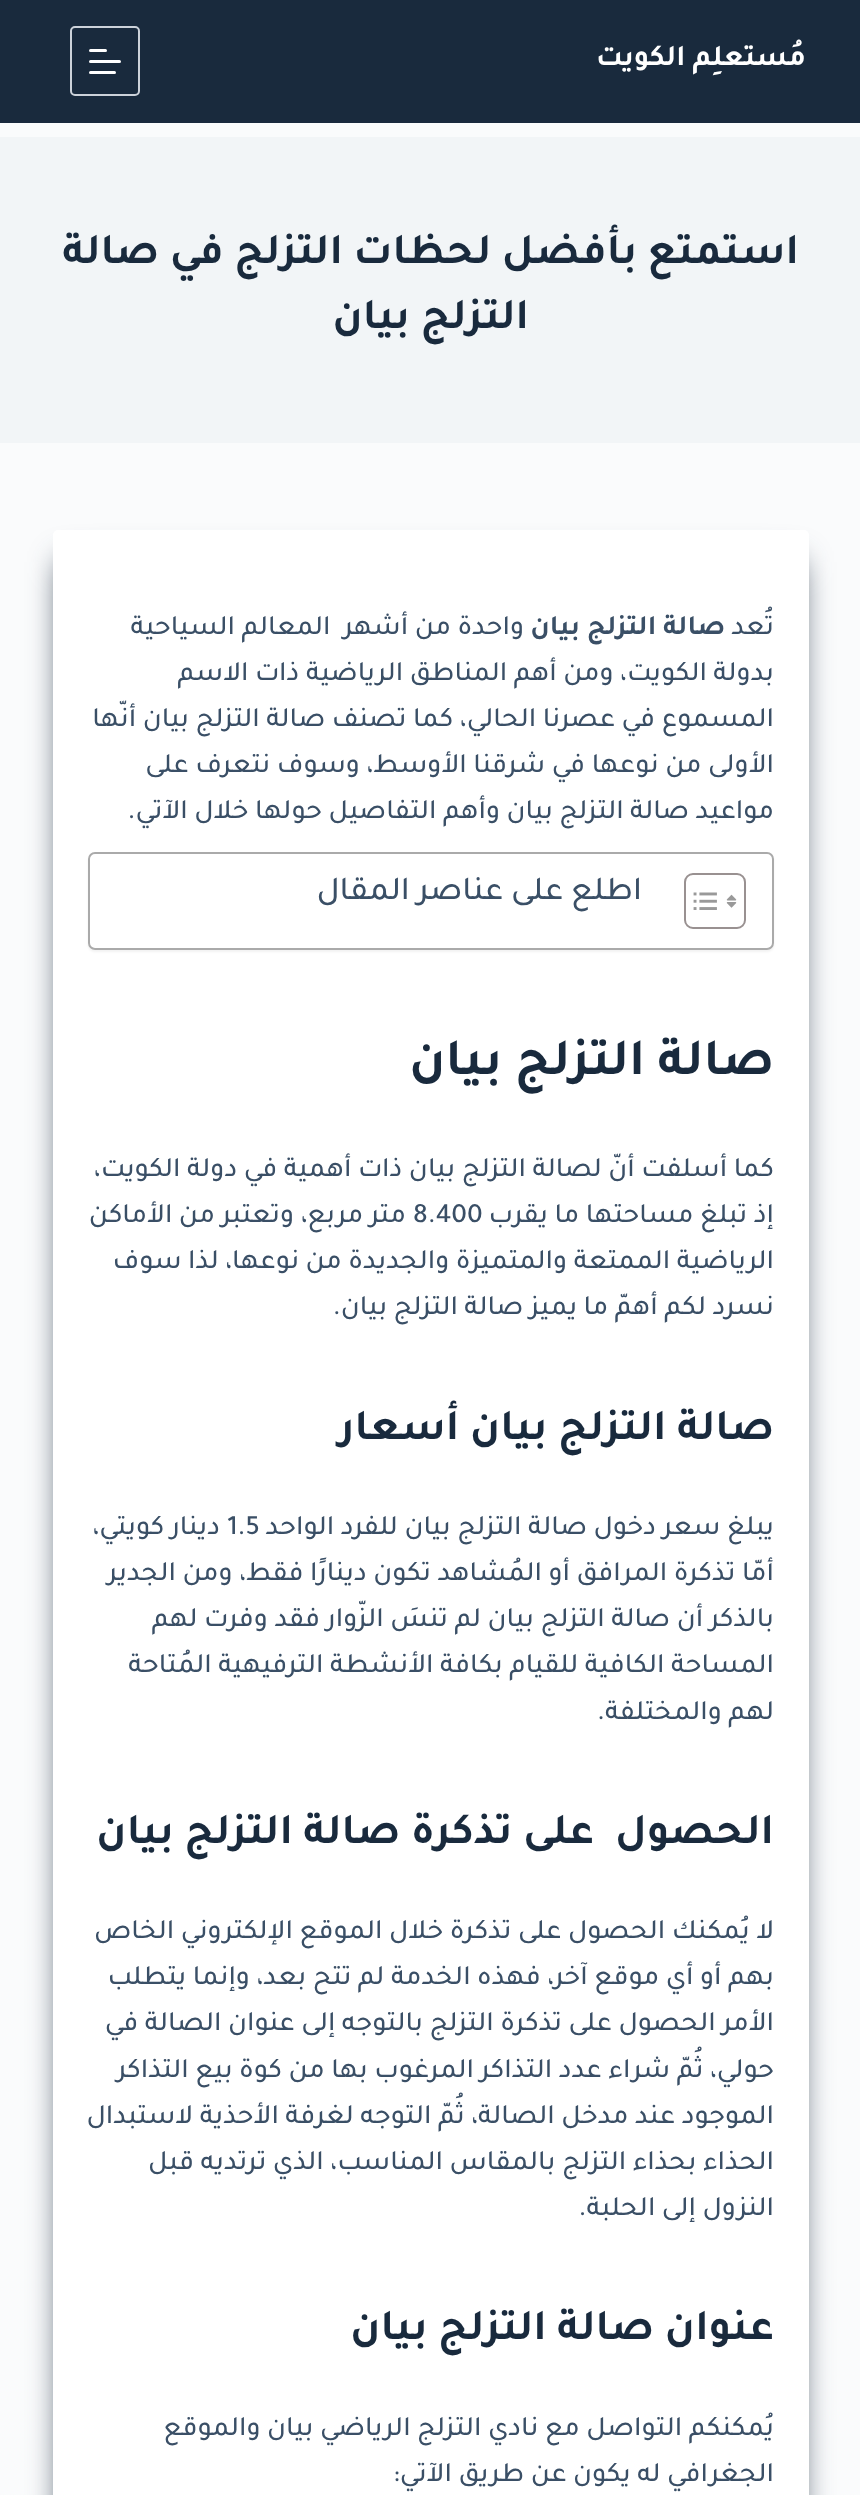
<?xml version="1.0" encoding="UTF-8"?>
<svg xmlns="http://www.w3.org/2000/svg" xmlns:xlink="http://www.w3.org/1999/xlink" width="860" height="2495">
  <defs>
    <clipPath id="clip1"><path d="M 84 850 h 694 v 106 h -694 z m 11 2 h 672 c 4 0 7 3 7 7 v 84 c 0 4 -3 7 -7 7 h -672 c -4 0 -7 -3 -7 -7 v -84 c 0 -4 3 -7 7 -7 z" clip-rule="evenodd" /></clipPath>
  </defs>
  <rect width="100%" height="100%" fill="#fafbfc" />
  <rect width="860" height="123" fill="#192a3d" />
  <rect x="71" y="27" width="68" height="68" rx="4" fill="none" stroke="#ccd2da" stroke-width="2" />
  <rect x="89" y="49" width="18" height="3" rx="1.5" fill="#ffffff" />
  <rect x="89" y="60" width="32" height="3" rx="1.5" fill="#ffffff" />
  <rect x="89" y="71" width="27" height="3" rx="1.5" fill="#ffffff" />
  <rect y="137" width="860" height="306" fill="#f2f5f7" />
  <rect x="63" y="562" width="735" height="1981" fill="#192a3d" filter="blur(16px)" />
  <rect x="53" y="530" width="756" height="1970" rx="5" fill="#ffffff" />
  <g clip-path="url(#clip1)">
    <rect x="88" y="854" width="686" height="98" rx="7" fill="#000000" fill-opacity="0.05" filter="blur(1px)" />
  </g>
  <rect x="89" y="853" width="684" height="96" rx="6" fill="none" stroke="#aaaaaa" stroke-width="2" />
  <rect x="685" y="874" width="60" height="54" rx="8" fill="none" stroke="#999191" stroke-width="2" />
  <image x="726" y="894" width="11" height="14" xlink:href="image1.png" />
  <image x="693" y="892" width="24" height="18" xlink:href="image2.png" />
  <text x="806" y="65" style="font-family: Tajawal; font-size: 29.75px; font-weight: bold; direction: rtl; fill: #ffffff">مُستعلِم الكويت</text>
  <text x="799" y="263" style="font-family: Tajawal; font-size: 43.75px; font-weight: bold; direction: rtl; fill: #192a3d">استمتع بأفضل لحظات التزلج في صالة</text>
  <text x="529" y="328" style="font-family: Tajawal; font-size: 43.75px; font-weight: bold; direction: rtl; fill: #192a3d">التزلج بيان</text>
  <text x="774" y="634" style="font-family: Tajawal; font-size: 28px; font-weight: 500; direction: rtl; fill: #3a4f66">تُعد</text>
  <text x="725" y="634" style="font-family: Tajawal; font-size: 28px; font-weight: bold; direction: rtl; fill: #3a4f66">صالة التزلج بيان</text>
  <text x="524" y="634" style="font-family: Tajawal; font-size: 28px; font-weight: 500; direction: rtl; fill: #3a4f66" xml:space="preserve">واحدة من أشهر  المعالم السياحية</text>
  <text x="774" y="680" style="font-family: Tajawal; font-size: 28px; font-weight: 500; direction: rtl; fill: #3a4f66">بدولة الكويت، ومن أهم المناطق الرياضية ذات الاسم</text>
  <text x="774" y="726" style="font-family: Tajawal; font-size: 28px; font-weight: 500; direction: rtl; fill: #3a4f66">المسموع في عصرنا الحالي، كما تصنف صالة التزلج بيان أنّها</text>
  <text x="774" y="772" style="font-family: Tajawal; font-size: 28px; font-weight: 500; direction: rtl; fill: #3a4f66">الأولى من نوعها في شرقنا الأوسط، وسوف نتعرف على</text>
  <text x="774" y="818" style="font-family: Tajawal; font-size: 28px; font-weight: 500; direction: rtl; fill: #3a4f66">مواعيد صالة التزلج بيان وأهم التفاصيل حولها خلال الآتي.</text>
  <text x="642" y="899" style="font-family: Tajawal; font-size: 33.5px; font-weight: 500; direction: rtl; fill: #3a4f66">اطلع على عناصر المقال</text>
  <text x="774" y="1074" style="font-family: Tajawal; font-size: 52.5px; font-weight: bold; direction: rtl; fill: #192a3d">صالة التزلج بيان</text>
  <text x="774" y="1176" style="font-family: Tajawal; font-size: 28px; font-weight: 500; direction: rtl; fill: #3a4f66">كما أسلفت أنّ لصالة التزلج بيان ذات أهمية في دولة الكويت،</text>
  <text x="774" y="1222" style="font-family: Tajawal; font-size: 28px; font-weight: 500; direction: rtl; fill: #3a4f66">إذ تبلغ مساحتها ما يقرب</text>
  <text x="413" y="1222" style="font-family: Tajawal; font-size: 28px; font-weight: 500; fill: #3a4f66">8.400</text>
  <text x="406" y="1222" style="font-family: Tajawal; font-size: 28px; font-weight: 500; direction: rtl; fill: #3a4f66">متر مربع، وتعتبر من الأماكن</text>
  <text x="774" y="1268" style="font-family: Tajawal; font-size: 28px; font-weight: 500; direction: rtl; fill: #3a4f66">الرياضية الممتعة والمتميزة والجديدة من نوعها، لذا سوف</text>
  <text x="774" y="1314" style="font-family: Tajawal; font-size: 28px; font-weight: 500; direction: rtl; fill: #3a4f66">نسرد لكم أهمّ ما يميز صالة التزلج بيان.</text>
  <text x="774" y="1439" style="font-family: Tajawal; font-size: 43.75px; font-weight: bold; direction: rtl; fill: #192a3d">صالة التزلج بيان أسعار</text>
  <text x="774" y="1534" style="font-family: Tajawal; font-size: 28px; font-weight: 500; direction: rtl; fill: #3a4f66">يبلغ سعر دخول صالة التزلج بيان للفرد الواحد</text>
  <text x="227" y="1534" style="font-family: Tajawal; font-size: 28px; font-weight: 500; fill: #3a4f66">1.5</text>
  <text x="220" y="1534" style="font-family: Tajawal; font-size: 28px; font-weight: 500; direction: rtl; fill: #3a4f66">دينار كويتي،</text>
  <text x="774" y="1580" style="font-family: Tajawal; font-size: 28px; font-weight: 500; direction: rtl; fill: #3a4f66">أمّا تذكرة المرافق أو المُشاهد تكون دينارًا فقط، ومن الجدير</text>
  <text x="774" y="1626" style="font-family: Tajawal; font-size: 28px; font-weight: 500; direction: rtl; fill: #3a4f66">بالذكر أن صالة التزلج بيان لم تنسَ الزّوار فقد وفرت لهم</text>
  <text x="774" y="1672" style="font-family: Tajawal; font-size: 28px; font-weight: 500; direction: rtl; fill: #3a4f66">المساحة الكافية للقيام بكافة الأنشطة الترفيهية المُتاحة</text>
  <text x="774" y="1719" style="font-family: Tajawal; font-size: 28px; font-weight: 500; direction: rtl; fill: #3a4f66">لهم والمختلفة.</text>
  <text x="774" y="1843" style="font-family: Tajawal; font-size: 43.75px; font-weight: bold; direction: rtl; fill: #192a3d" xml:space="preserve">الحصول  على تذكرة صالة التزلج بيان</text>
  <text x="774" y="1938" style="font-family: Tajawal; font-size: 28px; font-weight: 500; direction: rtl; fill: #3a4f66">لا يُمكنك الحصول على تذكرة خلال الموقع الإلكتروني الخاص</text>
  <text x="774" y="1984" style="font-family: Tajawal; font-size: 28px; font-weight: 500; direction: rtl; fill: #3a4f66">بهم أو أي موقع آخر، فهذه الخدمة لم تتح بعد، وإنما يتطلب</text>
  <text x="774" y="2030" style="font-family: Tajawal; font-size: 28px; font-weight: 500; direction: rtl; fill: #3a4f66">الأمر الحصول على تذكرة التزلج بالتوجه إلى عنوان الصالة في</text>
  <text x="774" y="2077" style="font-family: Tajawal; font-size: 28px; font-weight: 500; direction: rtl; fill: #3a4f66">حولي، ثُمّ شراء عدد التذاكر المرغوب بها من كوة بيع التذاكر</text>
  <text x="774" y="2123" style="font-family: Tajawal; font-size: 28px; font-weight: 500; direction: rtl; fill: #3a4f66">الموجود عند مدخل الصالة، ثُمّ التوجه لغرفة الأحذية لاستبدال</text>
  <text x="774" y="2169" style="font-family: Tajawal; font-size: 28px; font-weight: 500; direction: rtl; fill: #3a4f66">الحذاء بحذاء التزلج بالمقاس المناسب، الذي ترتديه قبل</text>
  <text x="774" y="2215" style="font-family: Tajawal; font-size: 28px; font-weight: 500; direction: rtl; fill: #3a4f66">النزول إلى الحلبة.</text>
  <text x="774" y="2339" style="font-family: Tajawal; font-size: 43.75px; font-weight: bold; direction: rtl; fill: #192a3d">عنوان صالة التزلج بيان</text>
  <text x="774" y="2435" style="font-family: Tajawal; font-size: 28px; font-weight: 500; direction: rtl; fill: #3a4f66">يُمكنكم التواصل مع نادي التزلج الرياضي بيان والموقع</text>
  <text x="774" y="2481" style="font-family: Tajawal; font-size: 28px; font-weight: 500; direction: rtl; fill: #3a4f66">الجغرافي له يكون عن طريق الآتي:</text>
</svg>
